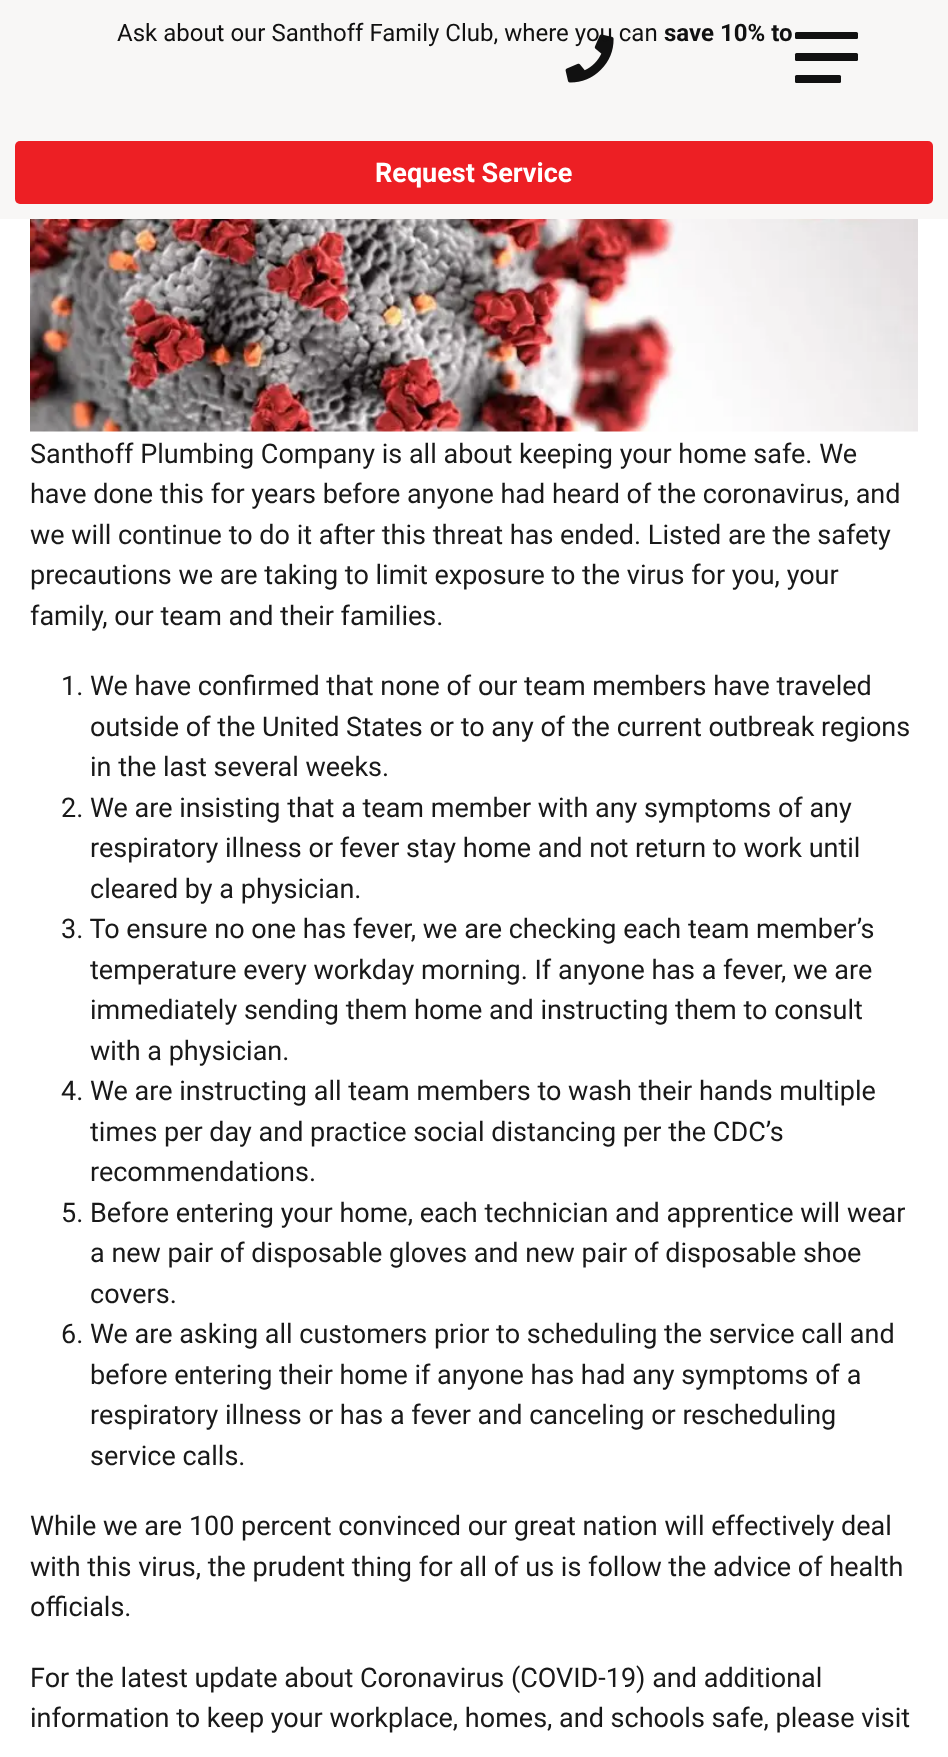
<?xml version="1.0" encoding="UTF-8"?>
<svg xmlns="http://www.w3.org/2000/svg" xmlns:xlink="http://www.w3.org/1999/xlink" width="948" height="1757">
  <rect width="100%" height="100%" fill="#ffffff" />
  <rect width="948" height="219" fill="#f8f7f6" />
  <image x="565" y="34" width="49" height="49" xlink:href="image1.png" />
  <rect x="795" y="32" width="63" height="7" rx="1.5" fill="#111111" />
  <rect x="795" y="53" width="63" height="8" rx="1.5" fill="#111111" />
  <rect x="795" y="75" width="46" height="8" rx="1.5" fill="#111111" />
  <rect x="15" y="141" width="918" height="63" rx="5" fill="#ed1f24" />
  <image x="30" y="219" width="888" height="213" xlink:href="image2.png" />
  <text x="117" y="41" style="font-family: Roboto; font-size: 24px; fill: #111111">Ask about our Santhoff Family Club, where you can</text>
  <text x="664" y="41" style="font-family: Roboto; font-size: 24px; font-weight: bold; fill: #111111">save 10% to</text>
  <text x="375" y="182" style="font-family: Roboto; font-size: 27px; font-weight: bold; fill: #ffffff">Request Service</text>
  <text x="30" y="463" style="font-family: Roboto; font-size: 27px; fill: #191919">Santhoff Plumbing Company is all about keeping your home safe. We</text>
  <text x="30" y="503" style="font-family: Roboto; font-size: 27px; fill: #191919">have done this for years before anyone had heard of the coronavirus, and</text>
  <text x="30" y="544" style="font-family: Roboto; font-size: 27px; fill: #191919">we will continue to do it after this threat has ended. Listed are the safety</text>
  <text x="30" y="584" style="font-family: Roboto; font-size: 27px; fill: #191919">precautions we are taking to limit exposure to the virus for you, your</text>
  <text x="30" y="625" style="font-family: Roboto; font-size: 27px; fill: #191919">family, our team and their families.</text>
  <text x="61" y="695" style="font-family: Roboto; font-size: 27px; fill: #191919">1. We have confirmed that none of our team members have traveled</text>
  <text x="90" y="736" style="font-family: Roboto; font-size: 27px; fill: #191919">outside of the United States or to any of the current outbreak regions</text>
  <text x="90" y="776" style="font-family: Roboto; font-size: 27px; fill: #191919">in the last several weeks.</text>
  <text x="61" y="817" style="font-family: Roboto; font-size: 27px; fill: #191919">2. We are insisting that a team member with any symptoms of any</text>
  <text x="90" y="857" style="font-family: Roboto; font-size: 27px; fill: #191919">respiratory illness or fever stay home and not return to work until</text>
  <text x="90" y="898" style="font-family: Roboto; font-size: 27px; fill: #191919">cleared by a physician.</text>
  <text x="61" y="938" style="font-family: Roboto; font-size: 27px; fill: #191919">3. To ensure no one has fever, we are checking each team member’s</text>
  <text x="90" y="979" style="font-family: Roboto; font-size: 27px; fill: #191919">temperature every workday morning. If anyone has a fever, we are</text>
  <text x="90" y="1019" style="font-family: Roboto; font-size: 27px; fill: #191919">immediately sending them home and instructing them to consult</text>
  <text x="90" y="1060" style="font-family: Roboto; font-size: 27px; fill: #191919">with a physician.</text>
  <text x="61" y="1100" style="font-family: Roboto; font-size: 27px; fill: #191919">4. We are instructing all team members to wash their hands multiple</text>
  <text x="90" y="1141" style="font-family: Roboto; font-size: 27px; fill: #191919">times per day and practice social distancing per the CDC’s</text>
  <text x="90" y="1181" style="font-family: Roboto; font-size: 27px; fill: #191919">recommendations.</text>
  <text x="61" y="1222" style="font-family: Roboto; font-size: 27px; fill: #191919">5. Before entering your home, each technician and apprentice will wear</text>
  <text x="90" y="1262" style="font-family: Roboto; font-size: 27px; fill: #191919">a new pair of disposable gloves and new pair of disposable shoe</text>
  <text x="90" y="1303" style="font-family: Roboto; font-size: 27px; fill: #191919">covers.</text>
  <text x="61" y="1343" style="font-family: Roboto; font-size: 27px; fill: #191919">6. We are asking all customers prior to scheduling the service call and</text>
  <text x="90" y="1384" style="font-family: Roboto; font-size: 27px; fill: #191919">before entering their home if anyone has had any symptoms of a</text>
  <text x="90" y="1424" style="font-family: Roboto; font-size: 27px; fill: #191919">respiratory illness or has a fever and canceling or rescheduling</text>
  <text x="90" y="1465" style="font-family: Roboto; font-size: 27px; fill: #191919">service calls.</text>
  <text x="30" y="1535" style="font-family: Roboto; font-size: 27px; fill: #191919">While we are 100 percent convinced our great nation will effectively deal</text>
  <text x="30" y="1576" style="font-family: Roboto; font-size: 27px; fill: #191919">with this virus, the prudent thing for all of us is follow the advice of health</text>
  <text x="30" y="1616" style="font-family: Roboto; font-size: 27px; fill: #191919">officials.</text>
  <text x="30" y="1687" style="font-family: Roboto; font-size: 27px; fill: #191919">For the latest update about Coronavirus (COVID-19) and additional</text>
  <text x="30" y="1727" style="font-family: Roboto; font-size: 27px; fill: #191919">information to keep your workplace, homes, and schools safe, please visit</text>
</svg>
